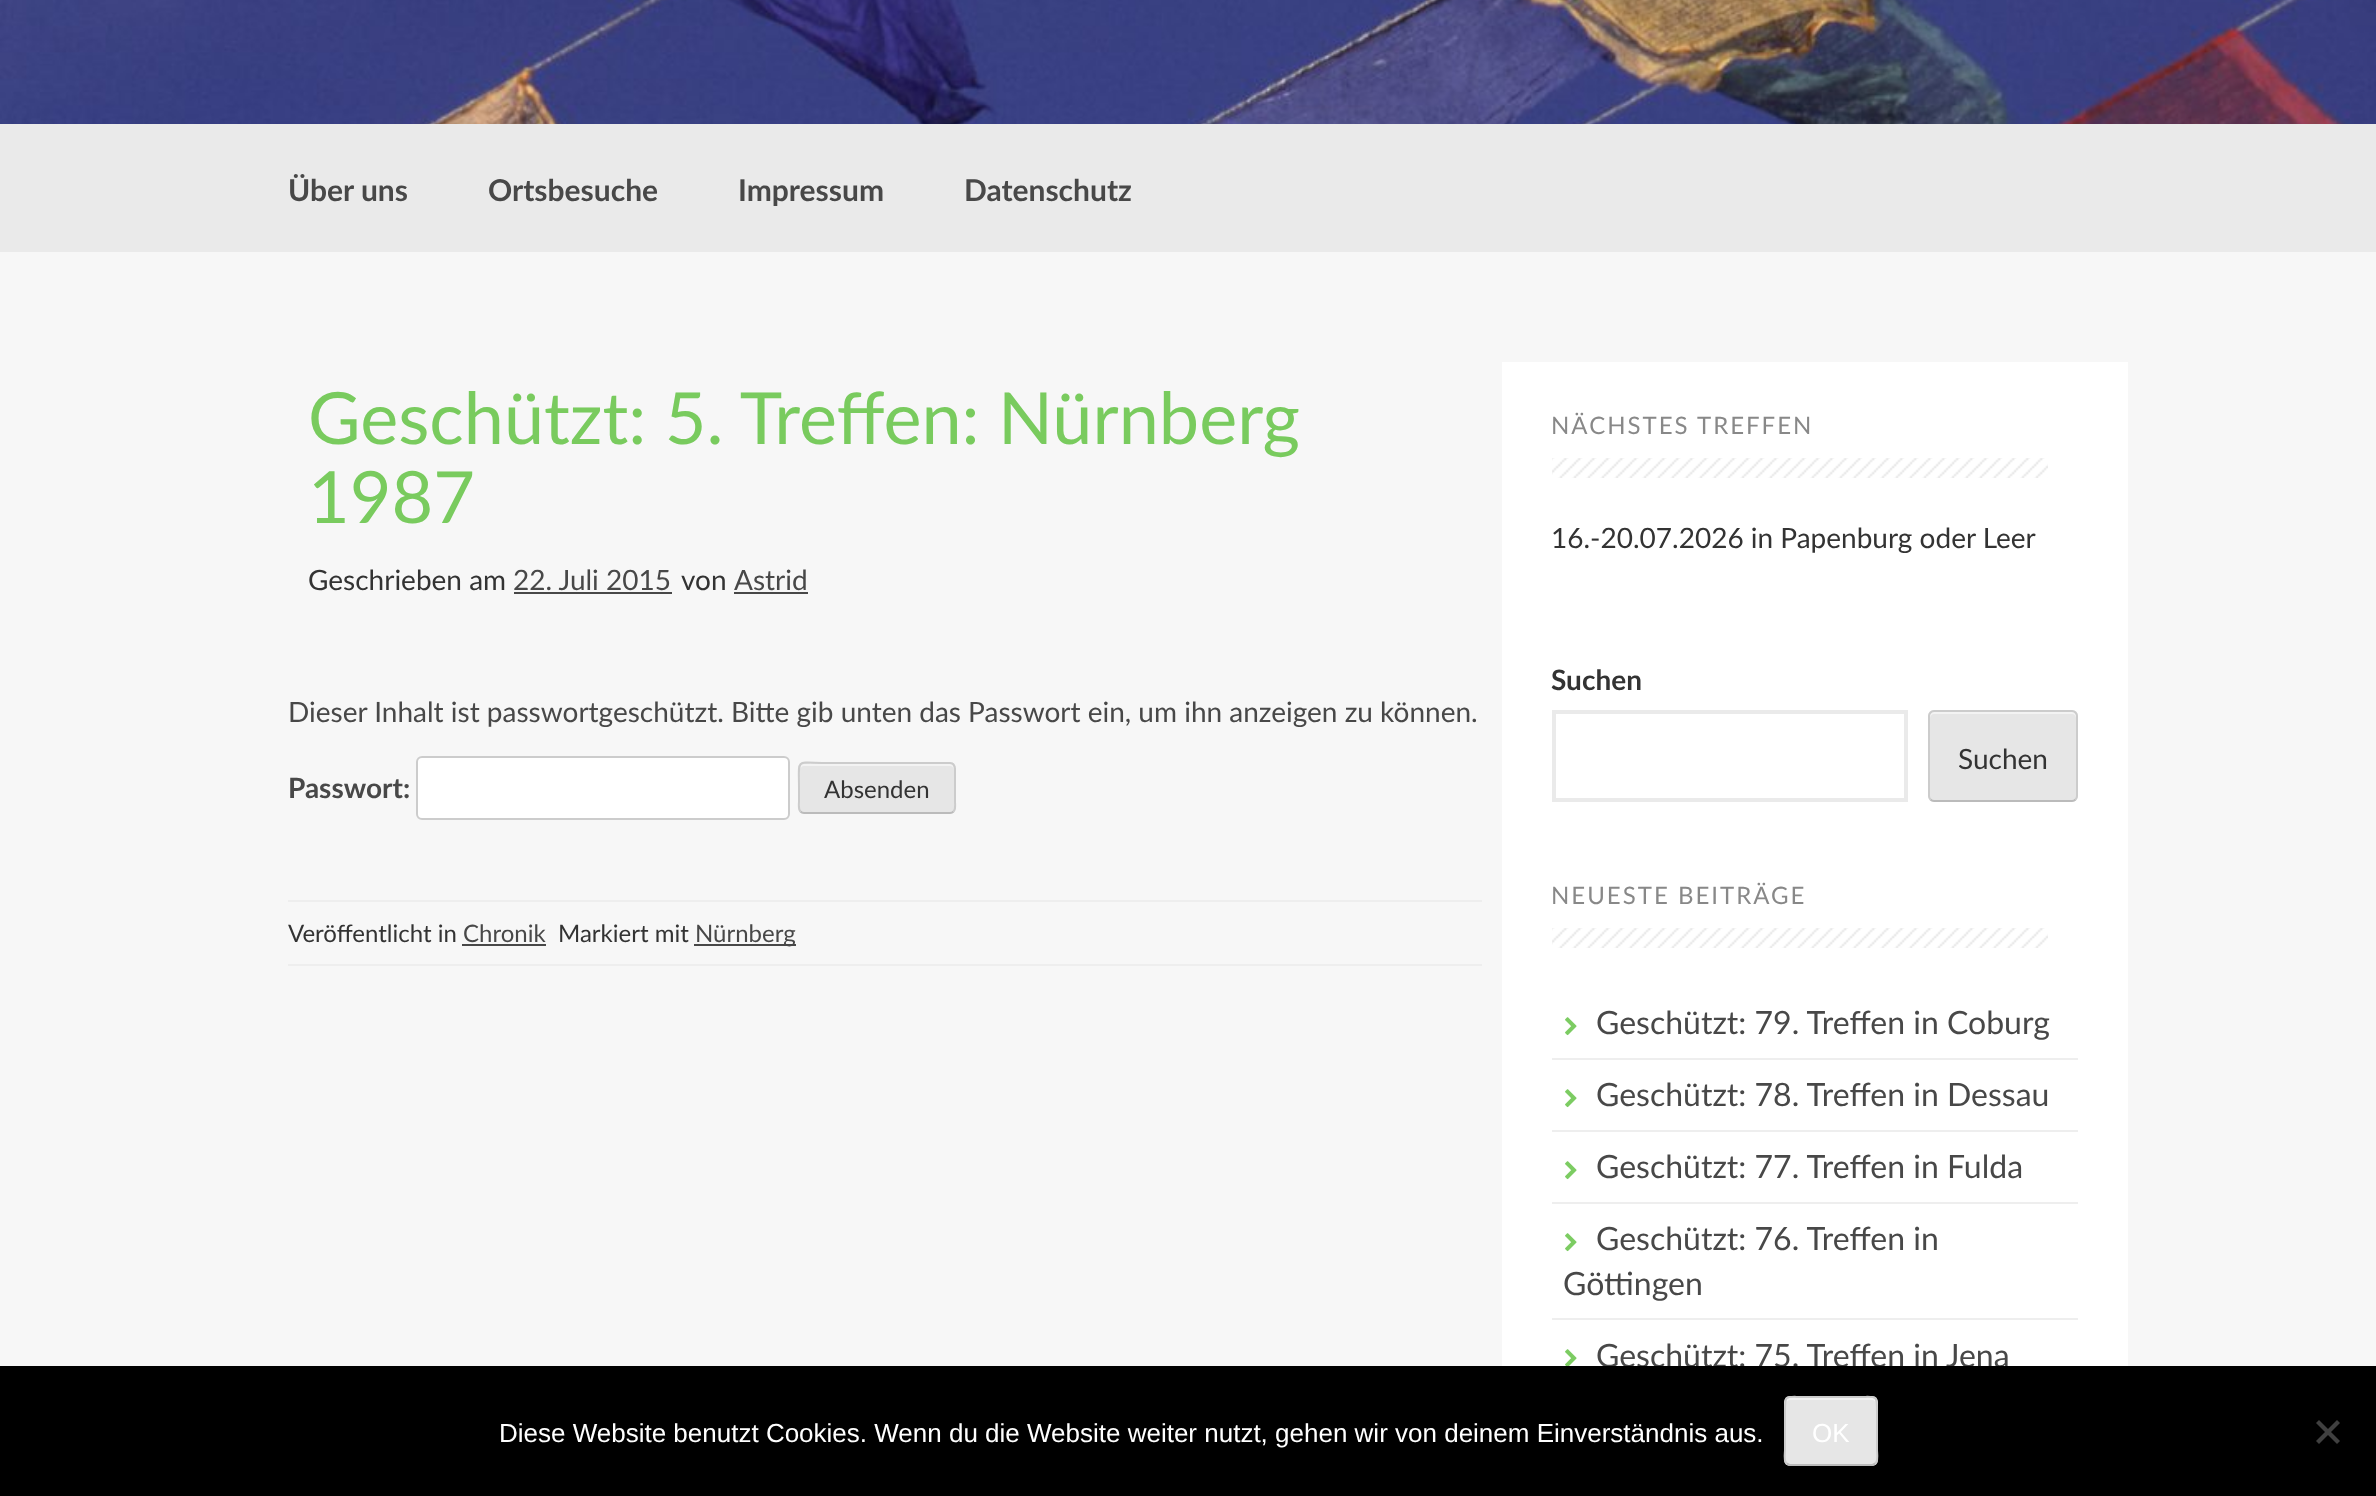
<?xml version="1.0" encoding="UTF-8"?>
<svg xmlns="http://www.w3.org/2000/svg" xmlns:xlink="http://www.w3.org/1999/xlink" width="2376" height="1496">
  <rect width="100%" height="100%" fill="#f7f7f7" />
  <image x="0" y="0" width="2376" height="124" xlink:href="image1.png" />
  <rect y="124" width="2376" height="128" fill="#eaeaea" />
  <rect x="514" y="592" width="158" height="2" fill="#484848" />
  <rect x="734" y="592" width="74" height="2" fill="#484848" />
  <rect x="417" y="757" width="372" height="62" rx="5" fill="#ffffff" stroke="#cccccc" stroke-width="2" />
  <rect x="798" y="762" width="158" height="52" rx="6" fill="#e6e6e6" />
  <path d="M 804 766 h 146 c 2 0 4 2 4 4 v -2 c 0 -2 -2 -4 -4 -4 h -146 c -2 0 -4 2 -4 4 v 2 c 0 -2 2 -4 4 -4 z" fill="#f3f3f3" />
  <path d="M 953.5 811.5 c -1 1 -2 1.5 -3.5 1.5 h -146 c -1.5 0 -2.5 -0.5 -3.5 -1.5" fill="none" stroke="#bbbbbb" stroke-width="2" />
  <path d="M 800.5 811.5 c -2.5 -2.5 -1.5 -7.5 -1.5 -10 v -13.5 c 0 -31 -4.5 -25 29.5 -25 h 121.5 c 6 0 5 8 5 11.5 v 27 c 0 2.5 1 7.5 -1.5 10" fill="none" stroke="#cccccc" stroke-width="2" />
  <rect x="288" y="900" width="1194" height="2" fill="#eeeeee" />
  <rect x="288" y="964" width="1194" height="2" fill="#eeeeee" />
  <rect x="462" y="944" width="84" height="2" fill="#484848" />
  <rect x="694" y="944" width="102" height="2" fill="#484848" />
  <rect x="1502" y="362" width="626" height="1004" fill="#ffffff" />
  <image x="1552" y="458" width="496" height="20" xlink:href="image2.png" />
  <rect x="1554" y="712" width="352" height="88" fill="none" stroke="#eaeaea" stroke-width="4" />
  <rect x="1928" y="710" width="150" height="92" rx="6" fill="#e6e6e6" />
  <path d="M 1934 714 h 138 c 2 0 4 2 4 4 v -2 c 0 -2 -2 -4 -4 -4 h -138 c -2 0 -4 2 -4 4 v 2 c 0 -2 2 -4 4 -4 z" fill="#f3f3f3" />
  <path d="M 2075.5 799.5 c -1 1 -2 1.5 -3.5 1.5 h -138 c -1.5 0 -2.5 -0.5 -3.5 -1.5" fill="none" stroke="#bbbbbb" stroke-width="2" />
  <path d="M 1930.5 799.5 c -1 -1 -1.5 -2 -1.5 -3.5 v -80 c 0 -1.5 0.5 -2.5 1.5 -3.5 c 1 -1 2 -1.5 3.5 -1.5 h 138 c 1.5 0 2.5 0.5 3.5 1.5 c 1 1 1.5 2 1.5 3.5 v 80 c 0 1.5 -0.5 2.5 -1.5 3.5" fill="none" stroke="#cccccc" stroke-width="2" />
  <image x="1552" y="928" width="496" height="20" xlink:href="image3.png" />
  <rect x="1552" y="1058" width="526" height="2" fill="#eeeeee" />
  <image x="1565" y="1017" width="12" height="19" xlink:href="image4.png" />
  <rect x="1552" y="1130" width="526" height="2" fill="#eeeeee" />
  <image x="1565" y="1089" width="12" height="19" xlink:href="image4.png" />
  <rect x="1552" y="1202" width="526" height="2" fill="#eeeeee" />
  <image x="1565" y="1161" width="12" height="19" xlink:href="image4.png" />
  <rect x="1552" y="1318" width="526" height="2" fill="#eeeeee" />
  <image x="1565" y="1233" width="12" height="19" xlink:href="image4.png" />
  <image x="1565" y="1349" width="12" height="17" xlink:href="image5.png" />
  <text x="288" y="201" style="font-family: Lato; font-size: 30px; font-weight: bold; fill: #484848">Über uns</text>
  <text x="488" y="201" style="font-family: Lato; font-size: 30px; font-weight: bold; fill: #484848">Ortsbesuche</text>
  <text x="738" y="201" style="font-family: Lato; font-size: 30px; font-weight: bold; fill: #484848">Impressum</text>
  <text x="964" y="201" style="font-family: Lato; font-size: 30px; font-weight: bold; fill: #484848">Datenschutz</text>
  <text x="308" y="444" style="font-family: Lato; font-size: 72px; fill: #79cb5e">Geschützt: 5. Treffen: Nürnberg</text>
  <text x="308" y="523" style="font-family: Lato; font-size: 72px; fill: #79cb5e">1987</text>
  <text x="308" y="590" style="font-family: Lato; font-size: 28px; fill: #333333">Geschrieben am</text>
  <text x="513" y="590" style="font-family: Lato; font-size: 28px; fill: #484848">22. Juli 2015</text>
  <text x="681" y="590" style="font-family: Lato; font-size: 28px; fill: #333333">von</text>
  <text x="734" y="590" style="font-family: Lato; font-size: 28px; fill: #484848">Astrid</text>
  <text x="288" y="722" style="font-family: Lato; font-size: 28px; fill: #484848">Dieser Inhalt ist passwortgeschützt. Bitte gib unten das Passwort ein, um ihn anzeigen zu können.</text>
  <text x="288" y="798" style="font-family: Lato; font-size: 28px; font-weight: bold; fill: #484848">Passwort:</text>
  <text x="824" y="798" style="font-family: Lato; font-size: 24px; fill: #333333">Absenden</text>
  <text x="288" y="942" style="font-family: Lato; font-size: 24px; fill: #333333">Veröffentlicht in</text>
  <text x="463" y="942" style="font-family: Lato; font-size: 24px; fill: #484848">Chronik</text>
  <text x="558" y="942" style="font-family: Lato; font-size: 24px; fill: #333333">Markiert mit</text>
  <text x="695" y="942" style="font-family: Lato; font-size: 24px; fill: #484848">Nürnberg</text>
  <text x="1551" y="434" style="font-family: Lato; font-size: 24px; letter-spacing: 2px; fill: #888888">NÄCHSTES TREFFEN</text>
  <text x="1551" y="548" style="font-family: Lato; font-size: 28px; fill: #333333">16.-20.07.2026 in Papenburg oder Leer</text>
  <text x="1551" y="690" style="font-family: Lato; font-size: 28px; font-weight: bold; fill: #333333">Suchen</text>
  <text x="1958" y="769" style="font-family: Lato; font-size: 28px; fill: #333333">Suchen</text>
  <text x="1551" y="904" style="font-family: Lato; font-size: 24px; letter-spacing: 2px; fill: #888888">NEUESTE BEITRÄGE</text>
  <text x="1596" y="1034" style="font-family: Lato; font-size: 32px; fill: #484848">Geschützt: 79. Treffen in Coburg</text>
  <text x="1596" y="1106" style="font-family: Lato; font-size: 32px; fill: #484848">Geschützt: 78. Treffen in Dessau</text>
  <text x="1596" y="1178" style="font-family: Lato; font-size: 32px; fill: #484848">Geschützt: 77. Treffen in Fulda</text>
  <text x="1596" y="1250" style="font-family: Lato; font-size: 32px; fill: #484848">Geschützt: 76. Treffen in</text>
  <text x="1563" y="1295" style="font-family: Lato; font-size: 32px; fill: #484848">Göttingen</text>
  <text x="1596" y="1367" style="font-family: Lato; font-size: 32px; fill: #484848">Geschützt: 75. Treffen in Jena</text>
  <rect y="1366" width="2376" height="130" fill="#000000" />
  <text x="499" y="1442" style="font-family: Liberation Sans; font-size: 26px; fill: #ffffff">Diese Website benutzt Cookies. Wenn du die Website weiter nutzt, gehen wir von deinem Einverständnis aus.</text>
  <rect x="1784" y="1396" width="94" height="70" rx="6" fill="#e6e6e6" />
  <path d="M 1790 1400 h 82 c 2 0 4 2 4 4 c 0 -10 -10 -6 -18 -6 h -54 c -8 0 -18 -4 -18 6 c 0 -2 2 -4 4 -4 z" fill="#f3f3f3" />
  <path d="M 1875.5 1463.5 l -3 1.5 h -83 l -3 -1.5" fill="none" stroke="#bbbbbb" stroke-width="2" />
  <path d="M 1786.5 1463.5 c -3 -3 -1.5 -11 -1.5 -13 v -39 c 0 -17.5 0 -14.5 18.5 -14.5 h 55 c 18.5 0 18.5 -3 18.5 14.5 v 39 c 0 2 1.5 10 -1.5 13" fill="none" stroke="#cccccc" stroke-width="2" />
  <text x="1812" y="1442" style="font-family: Liberation Sans; font-size: 26px; fill: #ffffff">OK</text>
  <path d="M 2337 1420 l 3 3 l -21 21 l -3 -3 z" fill="#404040" />
  <path d="M 2316 1423 l 3 -3 l 21 21 l -3 3 z" fill="#404040" />
</svg>
